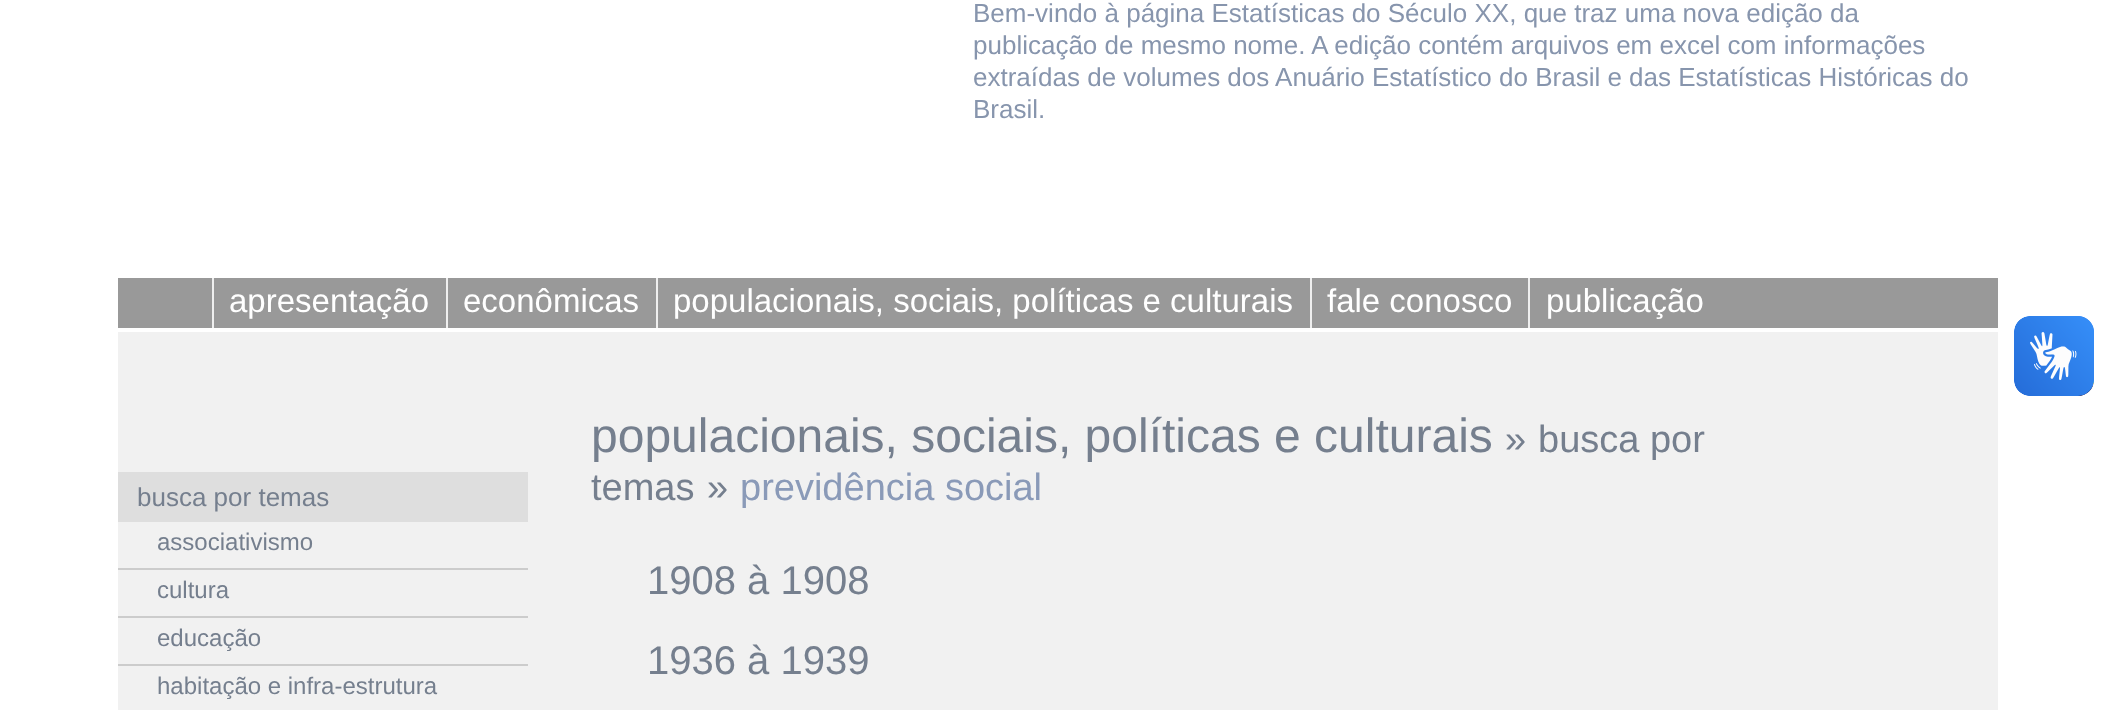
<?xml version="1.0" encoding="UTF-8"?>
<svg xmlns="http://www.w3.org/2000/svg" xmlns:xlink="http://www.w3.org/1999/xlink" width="2114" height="710">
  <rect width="100%" height="100%" fill="#ffffff" />
  <rect x="118" y="278" width="1880" height="50" fill="#999999" />
  <rect x="212" y="278" width="2" height="50" fill="#efefef" />
  <rect x="446" y="278" width="2" height="50" fill="#efefef" />
  <rect x="656" y="278" width="2" height="50" fill="#efefef" />
  <rect x="1310" y="278" width="2" height="50" fill="#efefef" />
  <rect x="1528" y="278" width="2" height="50" fill="#efefef" />
  <rect x="118" y="332" width="1880" height="378" fill="#f1f1f1" />
  <rect x="118" y="472" width="410" height="50" fill="#dedede" />
  <rect x="118" y="568" width="410" height="2" fill="#cccccc" />
  <rect x="118" y="616" width="410" height="2" fill="#cccccc" />
  <rect x="118" y="664" width="410" height="2" fill="#cccccc" />
  <image x="2014" y="316" width="80" height="80" xlink:href="image1.png" />
  <image x="2014" y="316" width="80" height="80" xlink:href="image2.png" />
  <text x="973" y="22" style="font-family: Liberation Sans; font-size: 26px; fill: #8795ad">Bem-vindo à página Estatísticas do Século XX, que traz uma nova edição da</text>
  <text x="973" y="54" style="font-family: Liberation Sans; font-size: 26px; fill: #8795ad">publicação de mesmo nome. A edição contém arquivos em excel com informações</text>
  <text x="973" y="86" style="font-family: Liberation Sans; font-size: 26px; fill: #8795ad">extraídas de volumes dos Anuário Estatístico do Brasil e das Estatísticas Históricas do</text>
  <text x="973" y="118" style="font-family: Liberation Sans; font-size: 26px; fill: #8795ad">Brasil.</text>
  <text x="229" y="312" style="font-family: Liberation Sans; font-size: 33px; fill: #ffffff">apresentação</text>
  <text x="463" y="312" style="font-family: Liberation Sans; font-size: 33px; fill: #ffffff">econômicas</text>
  <text x="673" y="312" style="font-family: Liberation Sans; font-size: 33px; fill: #ffffff">populacionais, sociais, políticas e culturais</text>
  <text x="1327" y="312" style="font-family: Liberation Sans; font-size: 33px; fill: #ffffff">fale conosco</text>
  <text x="1546" y="312" style="font-family: Liberation Sans; font-size: 33px; fill: #ffffff">publicação</text>
  <text x="137" y="506" style="font-family: Liberation Sans; font-size: 26px; fill: #757f8e">busca por temas</text>
  <text x="157" y="550" style="font-family: Liberation Sans; font-size: 24px; fill: #757f8e">associativismo</text>
  <text x="157" y="598" style="font-family: Liberation Sans; font-size: 24px; fill: #757f8e">cultura</text>
  <text x="157" y="646" style="font-family: Liberation Sans; font-size: 24px; fill: #757f8e">educação</text>
  <text x="157" y="694" style="font-family: Liberation Sans; font-size: 24px; fill: #757f8e">habitação e infra-estrutura</text>
  <text x="591" y="452" style="font-family: Liberation Sans; font-size: 48px; fill: #757f8e">populacionais, sociais, políticas e culturais</text>
  <text x="1505" y="452" style="font-family: Liberation Sans; font-size: 38px; fill: #757f8e">»</text>
  <text x="1538" y="452" style="font-family: Liberation Sans; font-size: 38px; fill: #757f8e">busca por</text>
  <text x="591" y="500" style="font-family: Liberation Sans; font-size: 38px; fill: #757f8e">temas</text>
  <text x="707" y="500" style="font-family: Liberation Sans; font-size: 38px; fill: #757f8e">»</text>
  <text x="740" y="500" style="font-family: Liberation Sans; font-size: 38px; fill: #8a9ab8">previdência social</text>
  <text x="647" y="594" style="font-family: Liberation Sans; font-size: 40px; fill: #757f8e">1908 à 1908</text>
  <text x="647" y="674" style="font-family: Liberation Sans; font-size: 40px; fill: #757f8e">1936 à 1939</text>
</svg>
